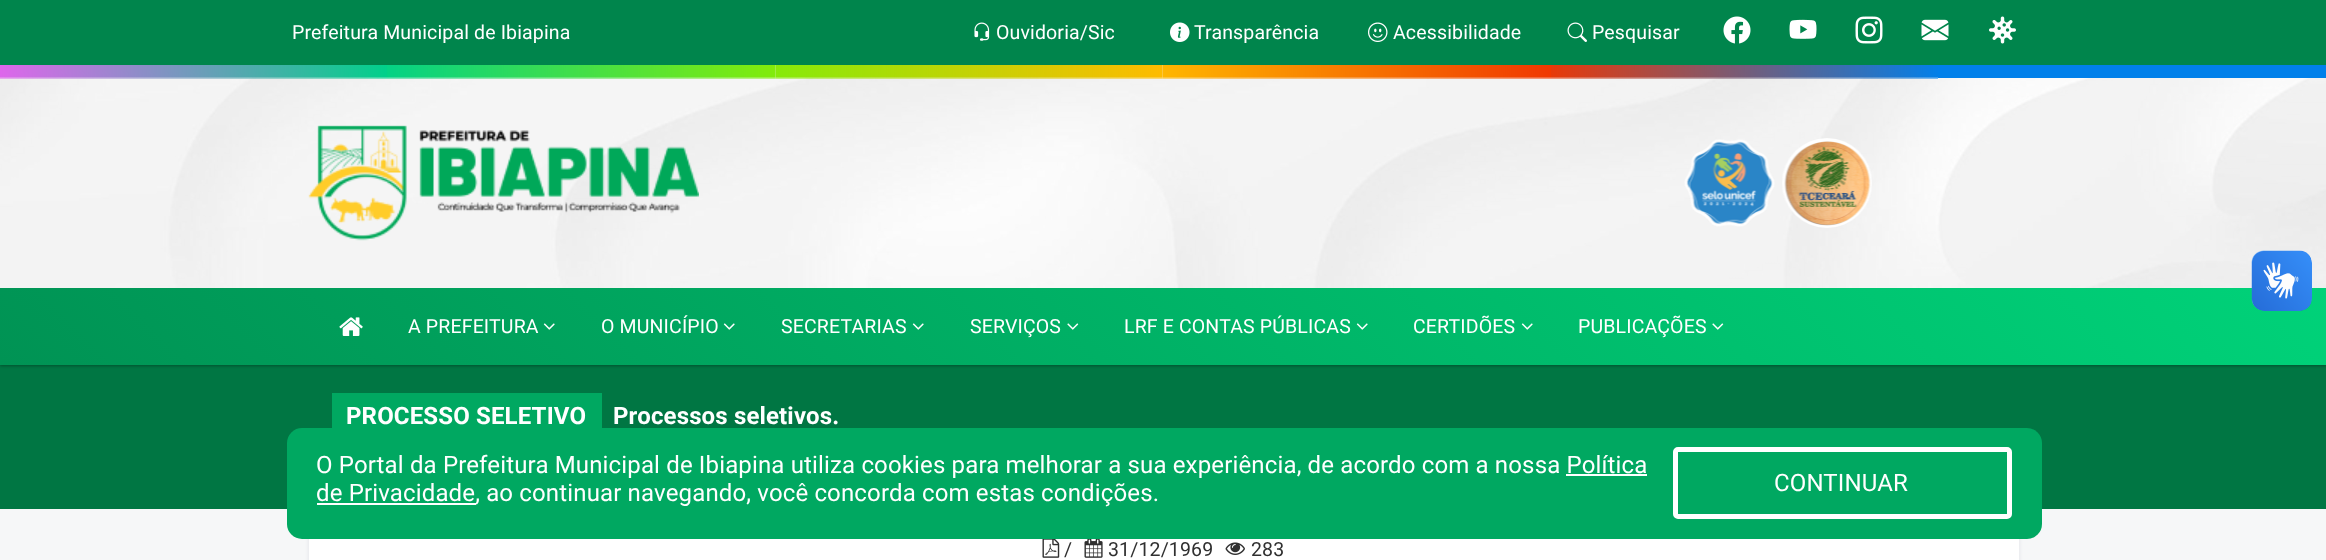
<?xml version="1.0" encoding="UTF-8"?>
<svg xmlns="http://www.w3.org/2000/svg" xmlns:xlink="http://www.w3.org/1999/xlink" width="2326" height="560">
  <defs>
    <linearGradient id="g1" gradientUnits="userSpaceOnUse" x1="563" y1="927" x2="1764" y2="-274"><stop offset="0" stop-color="#009354" /><stop offset="1" stop-color="#00d279" /></linearGradient>
  </defs>
  <rect width="100%" height="100%" fill="#f6f7f8" />
  <rect x="309" y="465" width="1710" height="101" fill="#030047" fill-opacity="0.09" filter="blur(2px)" />
  <rect y="365" width="2326" height="144" fill="#007643" />
  <rect y="2" width="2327" height="364" fill="#000000" fill-opacity="0.3" filter="blur(1.5px)" />
  <image x="0" y="65" width="2326" height="223" xlink:href="image1.png" />
  <rect width="2326" height="65" fill="#00854c" />
  <image x="974" y="22" width="16" height="19" xlink:href="image2.png" />
  <image x="1170" y="22" width="20" height="20" xlink:href="image3.png" />
  <image x="1368" y="22" width="20" height="20" xlink:href="image4.png" />
  <image x="1567" y="22" width="20" height="20" xlink:href="image5.png" />
  <image x="1723" y="16" width="28" height="28" xlink:href="image6.png" />
  <image x="1789" y="19" width="28" height="20" xlink:href="image7.png" />
  <image x="1855" y="16" width="28" height="28" xlink:href="image8.png" />
  <image x="1921" y="19" width="28" height="22" xlink:href="image9.png" />
  <image x="1989" y="16" width="27" height="28" xlink:href="image10.png" />
  <image x="0" y="65" width="387" height="14" xlink:href="image11.png" />
  <image x="387" y="65" width="389" height="14" xlink:href="image12.png" />
  <image x="775" y="65" width="388" height="14" xlink:href="image13.png" />
  <image x="1162" y="65" width="389" height="14" xlink:href="image14.png" />
  <image x="1551" y="65" width="387" height="14" xlink:href="image15.png" />
  <rect x="1938" y="65" width="388" height="13" fill="#0180ea" />
  <image x="308" y="125" width="391" height="116" xlink:href="image16.png" />
  <image x="1684" y="139" width="91" height="88" xlink:href="image17.png" />
  <image x="1782" y="138" width="90" height="90" xlink:href="image18.png" />
  <rect y="288" width="2326" height="77" fill="url(#g1)" />
  <image x="339" y="317" width="24" height="19" xlink:href="image19.png" />
  <image x="543" y="323" width="12" height="7" xlink:href="image20.png" />
  <image x="723" y="323" width="12" height="7" xlink:href="image21.png" />
  <image x="912" y="323" width="12" height="7" xlink:href="image22.png" />
  <image x="1067" y="323" width="12" height="7" xlink:href="image23.png" />
  <image x="1356" y="323" width="12" height="7" xlink:href="image24.png" />
  <image x="1521" y="323" width="12" height="7" xlink:href="image25.png" />
  <image x="1712" y="323" width="12" height="7" xlink:href="image26.png" />
  <image x="2251" y="250" width="61" height="61" xlink:href="image27.png" />
  <image x="2252" y="251" width="60" height="60" xlink:href="image28.png" />
  <rect x="332" y="393" width="270" height="35" fill="#00a861" />
  <rect x="287" y="428" width="1755" height="111" rx="15" fill="#00a861" />
  <rect x="1566" y="474" width="81" height="2" fill="#ffffff" />
  <rect x="317" y="503" width="159" height="2" fill="#ffffff" />
  <rect x="1675.5" y="449.5" width="334" height="67" rx="2.5" fill="none" stroke="#ffffff" stroke-width="5" />
  <rect x="309" y="539" width="1710" height="21" fill="#ffffff" />
  <image x="1042" y="539" width="18" height="19" xlink:href="image29.png" />
  <image x="1084" y="539" width="19" height="19" xlink:href="image30.png" />
  <image x="1225" y="542" width="20" height="13" xlink:href="image31.png" />
  <text x="292" y="39" style="font-family: Roboto; font-size: 19.5px; letter-spacing: 0.15px; fill: #ffffff">Prefeitura Municipal de Ibiapina</text>
  <text x="996" y="39" style="font-family: Roboto; font-size: 19.5px; letter-spacing: 0.15px; fill: #ffffff">Ouvidoria/Sic</text>
  <text x="1194" y="39" style="font-family: Roboto; font-size: 19.5px; letter-spacing: 0.15px; fill: #ffffff">Transparência</text>
  <text x="1393" y="39" style="font-family: Roboto; font-size: 19.5px; letter-spacing: 0.15px; fill: #ffffff">Acessibilidade</text>
  <text x="1592" y="39" style="font-family: Roboto; font-size: 19.5px; letter-spacing: 0.15px; fill: #ffffff">Pesquisar</text>
  <text x="408" y="333" style="font-family: Roboto; font-size: 19.5px; letter-spacing: 0.15px; fill: #ffffff">A PREFEITURA</text>
  <text x="601" y="333" style="font-family: Roboto; font-size: 19.5px; letter-spacing: 0.15px; fill: #ffffff">O MUNICÍPIO</text>
  <text x="781" y="333" style="font-family: Roboto; font-size: 19.5px; letter-spacing: 0.15px; fill: #ffffff">SECRETARIAS</text>
  <text x="970" y="333" style="font-family: Roboto; font-size: 19.5px; letter-spacing: 0.15px; fill: #ffffff">SERVIÇOS</text>
  <text x="1124" y="333" style="font-family: Roboto; font-size: 19.5px; letter-spacing: 0.15px; fill: #ffffff">LRF E CONTAS PÚBLICAS</text>
  <text x="1413" y="333" style="font-family: Roboto; font-size: 19.5px; letter-spacing: 0.15px; fill: #ffffff">CERTIDÕES</text>
  <text x="1578" y="333" style="font-family: Roboto; font-size: 19.5px; letter-spacing: 0.15px; fill: #ffffff">PUBLICAÇÕES</text>
  <text x="346" y="424" style="font-family: Roboto; font-size: 24px; font-weight: bold; letter-spacing: 0.15px; fill: #ffffff">PROCESSO SELETIVO</text>
  <text x="613" y="424" style="font-family: Roboto; font-size: 24px; font-weight: bold; letter-spacing: 0.15px; fill: #ffffff">Processos seletivos.</text>
  <text x="316" y="473" style="font-family: Roboto; font-size: 24px; letter-spacing: 0.15px; fill: #ffffff">O Portal da Prefeitura Municipal de Ibiapina utiliza cookies para melhorar a sua experiência, de acordo com a nossa Política</text>
  <text x="316" y="501" style="font-family: Roboto; font-size: 24px; letter-spacing: 0.15px; fill: #ffffff">de Privacidade, ao continuar navegando, você concorda com estas condições.</text>
  <text x="1774" y="491" style="font-family: Roboto; font-size: 24px; letter-spacing: 0.15px; fill: #ffffff">CONTINUAR</text>
  <text x="1064" y="556" style="font-family: Roboto; font-size: 19.5px; letter-spacing: 0.15px; fill: #303030">/</text>
  <text x="1108" y="556" style="font-family: Roboto; font-size: 19.5px; letter-spacing: 0.15px; fill: #303030">31/12/1969</text>
  <text x="1251" y="556" style="font-family: Roboto; font-size: 19.5px; letter-spacing: 0.15px; fill: #303030">283</text>
</svg>
